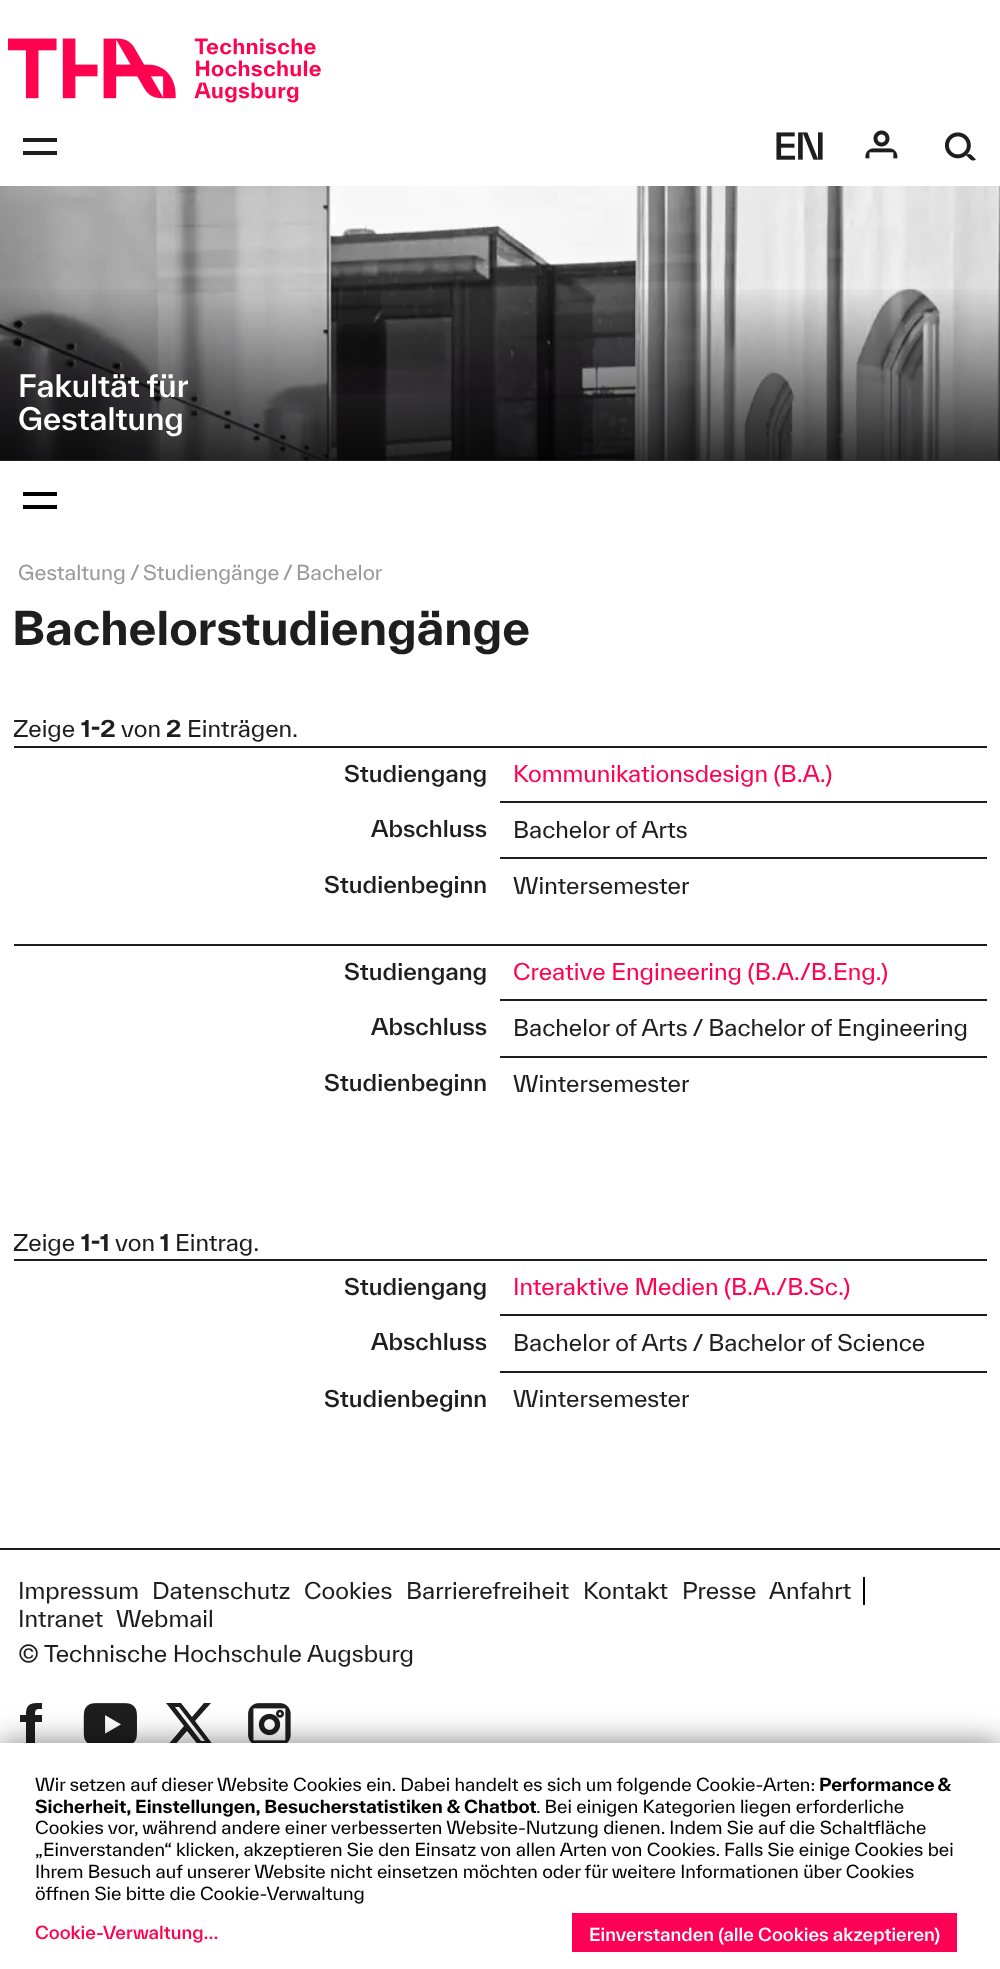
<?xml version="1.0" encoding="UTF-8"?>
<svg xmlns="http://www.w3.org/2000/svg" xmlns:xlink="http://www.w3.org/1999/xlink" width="1000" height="1969">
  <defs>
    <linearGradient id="g1" gradientUnits="userSpaceOnUse" x1="500" y1="461" x2="500" y2="284"><stop offset="0" stop-color="#000000" stop-opacity="0.8" /><stop offset="1" stop-color="#000000" stop-opacity="0" /></linearGradient>
  </defs>
  <rect width="100%" height="100%" fill="#ffffff" />
  <image x="8" y="38" width="313" height="65" xlink:href="image1.png" />
  <rect x="23" y="138" width="34" height="4" fill="#1e1e1e" />
  <rect x="23" y="151" width="34" height="4" fill="#1e1e1e" />
  <image x="776" y="132" width="47" height="28" xlink:href="image2.png" />
  <image x="865" y="130" width="33" height="29" xlink:href="image3.png" />
  <image x="944" y="132" width="32" height="29" xlink:href="image4.png" />
  <image x="0" y="186" width="1000" height="275" xlink:href="image5.png" />
  <rect y="289" width="1000" height="172" fill="url(#g1)" />
  <rect x="23" y="492" width="34" height="4" fill="#000000" />
  <rect x="23" y="505" width="34" height="4" fill="#000000" />
  <rect x="14" y="746" width="973" height="2" fill="#1e1e1e" />
  <rect x="500" y="801" width="487" height="2" fill="#1e1e1e" />
  <rect x="500" y="857" width="487" height="2" fill="#1e1e1e" />
  <rect x="14" y="944" width="973" height="2" fill="#1e1e1e" />
  <rect x="500" y="999" width="487" height="2" fill="#1e1e1e" />
  <rect x="500" y="1056" width="487" height="2" fill="#1e1e1e" />
  <rect x="14" y="1259" width="973" height="2" fill="#1e1e1e" />
  <rect x="500" y="1314" width="487" height="2" fill="#1e1e1e" />
  <rect x="500" y="1371" width="487" height="2" fill="#1e1e1e" />
  <rect y="1548" width="1000" height="2" fill="#1e1e1e" />
  <rect x="863" y="1577" width="2" height="28" fill="#000000" />
  <path d="M 42 1709 c -6 0 -7 0 -7 6 h 7 v 7 h -7 v 24 h -9 v -24 h -6 v -7 h 6 c 0 -12 5 -12 16 -12 z" fill="#1e1e1e" />
  <image x="83" y="1703" width="54" height="40" xlink:href="image6.png" />
  <path d="M 204 1703 h 7 l -16 18 l 19 25 h -15 l -12 -15 l -13 15 h -7 l 17 -20 l -18 -23 h 15 l 11 14 z m -3 38 h 4 l -26 -34 h -4 z" fill="#1e1e1e" />
  <image x="248" y="1703" width="43" height="40" xlink:href="image7.png" />
  <rect y="1743" width="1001" height="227" fill="#000000" fill-opacity="0.5" filter="blur(15px)" />
  <rect y="1743" width="1000" height="226" fill="#ffffff" />
  <rect x="572" y="1913" width="385" height="39" fill="#ff0057" />
  <text x="18" y="397" style="font-family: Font; font-size: 30px; font-weight: 500; fill: #ffffff">Fakultät für</text>
  <text x="18" y="430" style="font-family: Font; font-size: 30px; font-weight: 500; fill: #ffffff">Gestaltung</text>
  <text x="18" y="580" style="font-family: Font; font-size: 20px; fill: #999999">Gestaltung</text>
  <text x="130" y="580" style="font-family: Font; font-size: 20px; fill: #999999">/</text>
  <text x="143" y="580" style="font-family: Font; font-size: 20px; fill: #999999">Studiengänge</text>
  <text x="283" y="580" style="font-family: Font; font-size: 20px; fill: #999999">/</text>
  <text x="296" y="580" style="font-family: Font; font-size: 20px; fill: #999999">Bachelor</text>
  <text x="12" y="645" style="font-family: Font; font-size: 45px; font-weight: bold; fill: #1e1e1e">Bachelorstudiengänge</text>
  <text x="13" y="737" style="font-family: Font; font-size: 22.5px; fill: #1e1e1e">Zeige</text>
  <text x="81" y="737" style="font-family: Font; font-size: 22.5px; font-weight: bold; fill: #1e1e1e">1-2</text>
  <text x="121" y="737" style="font-family: Font; font-size: 22.5px; fill: #1e1e1e">von</text>
  <text x="166" y="737" style="font-family: Font; font-size: 22.5px; font-weight: bold; fill: #1e1e1e">2</text>
  <text x="187" y="737" style="font-family: Font; font-size: 22.5px; fill: #1e1e1e">Einträgen.</text>
  <text x="344" y="782" style="font-family: Font; font-size: 22.5px; font-weight: 500; fill: #1e1e1e">Studiengang</text>
  <text x="513" y="782" style="font-family: Font; font-size: 22.5px; fill: #ff0350">Kommunikationsdesign (B.A.)</text>
  <text x="371" y="837" style="font-family: Font; font-size: 22.5px; font-weight: 500; fill: #1e1e1e">Abschluss</text>
  <text x="513" y="838" style="font-family: Font; font-size: 22.5px; fill: #1e1e1e">Bachelor of Arts</text>
  <text x="324" y="893" style="font-family: Font; font-size: 22.5px; font-weight: 500; fill: #1e1e1e">Studienbeginn</text>
  <text x="513" y="894" style="font-family: Font; font-size: 22.5px; fill: #1e1e1e">Wintersemester</text>
  <text x="344" y="980" style="font-family: Font; font-size: 22.5px; font-weight: 500; fill: #1e1e1e">Studiengang</text>
  <text x="513" y="980" style="font-family: Font; font-size: 22.5px; fill: #ff0350">Creative Engineering (B.A./B.Eng.)</text>
  <text x="371" y="1035" style="font-family: Font; font-size: 22.5px; font-weight: 500; fill: #1e1e1e">Abschluss</text>
  <text x="513" y="1036" style="font-family: Font; font-size: 22.5px; fill: #1e1e1e">Bachelor of Arts / Bachelor of Engineering</text>
  <text x="324" y="1091" style="font-family: Font; font-size: 22.5px; font-weight: 500; fill: #1e1e1e">Studienbeginn</text>
  <text x="513" y="1092" style="font-family: Font; font-size: 22.5px; fill: #1e1e1e">Wintersemester</text>
  <text x="13" y="1251" style="font-family: Font; font-size: 22.5px; fill: #1e1e1e">Zeige</text>
  <text x="81" y="1251" style="font-family: Font; font-size: 22.5px; font-weight: bold; fill: #1e1e1e">1-1</text>
  <text x="115" y="1251" style="font-family: Font; font-size: 22.5px; fill: #1e1e1e">von</text>
  <text x="160" y="1251" style="font-family: Font; font-size: 22.5px; font-weight: bold; fill: #1e1e1e">1</text>
  <text x="175" y="1251" style="font-family: Font; font-size: 22.5px; fill: #1e1e1e">Eintrag.</text>
  <text x="344" y="1295" style="font-family: Font; font-size: 22.5px; font-weight: 500; fill: #1e1e1e">Studiengang</text>
  <text x="513" y="1295" style="font-family: Font; font-size: 22.5px; fill: #ff0350">Interaktive Medien (B.A./B.Sc.)</text>
  <text x="371" y="1350" style="font-family: Font; font-size: 22.5px; font-weight: 500; fill: #1e1e1e">Abschluss</text>
  <text x="513" y="1351" style="font-family: Font; font-size: 22.5px; fill: #1e1e1e">Bachelor of Arts / Bachelor of Science</text>
  <text x="324" y="1407" style="font-family: Font; font-size: 22.5px; font-weight: 500; fill: #1e1e1e">Studienbeginn</text>
  <text x="513" y="1407" style="font-family: Font; font-size: 22.5px; fill: #1e1e1e">Wintersemester</text>
  <text x="18" y="1599" style="font-family: Font; font-size: 22.5px; fill: #1e1e1e">Impressum</text>
  <text x="152" y="1599" style="font-family: Font; font-size: 22.5px; fill: #1e1e1e">Datenschutz</text>
  <text x="304" y="1599" style="font-family: Font; font-size: 22.5px; fill: #1e1e1e">Cookies</text>
  <text x="406" y="1599" style="font-family: Font; font-size: 22.5px; fill: #1e1e1e">Barrierefreiheit</text>
  <text x="583" y="1599" style="font-family: Font; font-size: 22.5px; fill: #1e1e1e">Kontakt</text>
  <text x="682" y="1599" style="font-family: Font; font-size: 22.5px; fill: #1e1e1e">Presse</text>
  <text x="769" y="1599" style="font-family: Font; font-size: 22.5px; fill: #1e1e1e">Anfahrt</text>
  <text x="18" y="1627" style="font-family: Font; font-size: 22.5px; fill: #1e1e1e">Intranet</text>
  <text x="116" y="1627" style="font-family: Font; font-size: 22.5px; fill: #1e1e1e">Webmail</text>
  <text x="18" y="1662" style="font-family: Font; font-size: 22.5px; fill: #1e1e1e">© Technische Hochschule Augsburg</text>
  <text x="35" y="1791" style="font-family: Font; font-size: 17.5px; fill: #000000">Wir setzen auf dieser Website Cookies ein. Dabei handelt es sich um folgende Cookie-Arten:</text>
  <text x="819" y="1791" word-spacing="-1" style="font-family: Font; font-size: 17.5px; font-weight: bold; fill: #000000">Performance &amp;</text>
  <text x="35" y="1813" style="font-family: Font; font-size: 17.5px; font-weight: bold; fill: #000000">Sicherheit, Einstellungen, Besucherstatistiken &amp; Chatbot</text>
  <text x="536" y="1813" style="font-family: Font; font-size: 17.5px; fill: #000000">. Bei einigen Kategorien liegen erforderliche</text>
  <text x="35" y="1834" style="font-family: Font; font-size: 17.5px; fill: #000000">Cookies vor, während andere einer verbesserten Website-Nutzung dienen. Indem Sie auf die Schaltfläche</text>
  <text x="35" y="1856" style="font-family: Font; font-size: 17.5px; fill: #000000">„Einverstanden“ klicken, akzeptieren Sie den Einsatz von allen Arten von Cookies. Falls Sie einige Cookies bei</text>
  <text x="35" y="1878" style="font-family: Font; font-size: 17.5px; fill: #000000">Ihrem Besuch auf unserer Website nicht einsetzen möchten oder für weitere Informationen über Cookies</text>
  <text x="35" y="1900" style="font-family: Font; font-size: 17.5px; fill: #000000">öffnen Sie bitte die Cookie-Verwaltung</text>
  <text x="35" y="1939" style="font-family: Font; font-size: 17.5px; font-weight: 500; fill: #ff0350">Cookie-Verwaltung...</text>
  <text x="589" y="1941" style="font-family: Font; font-size: 17.5px; font-weight: 500; fill: #ffffff">Einverstanden (alle Cookies akzeptieren)</text>
</svg>
